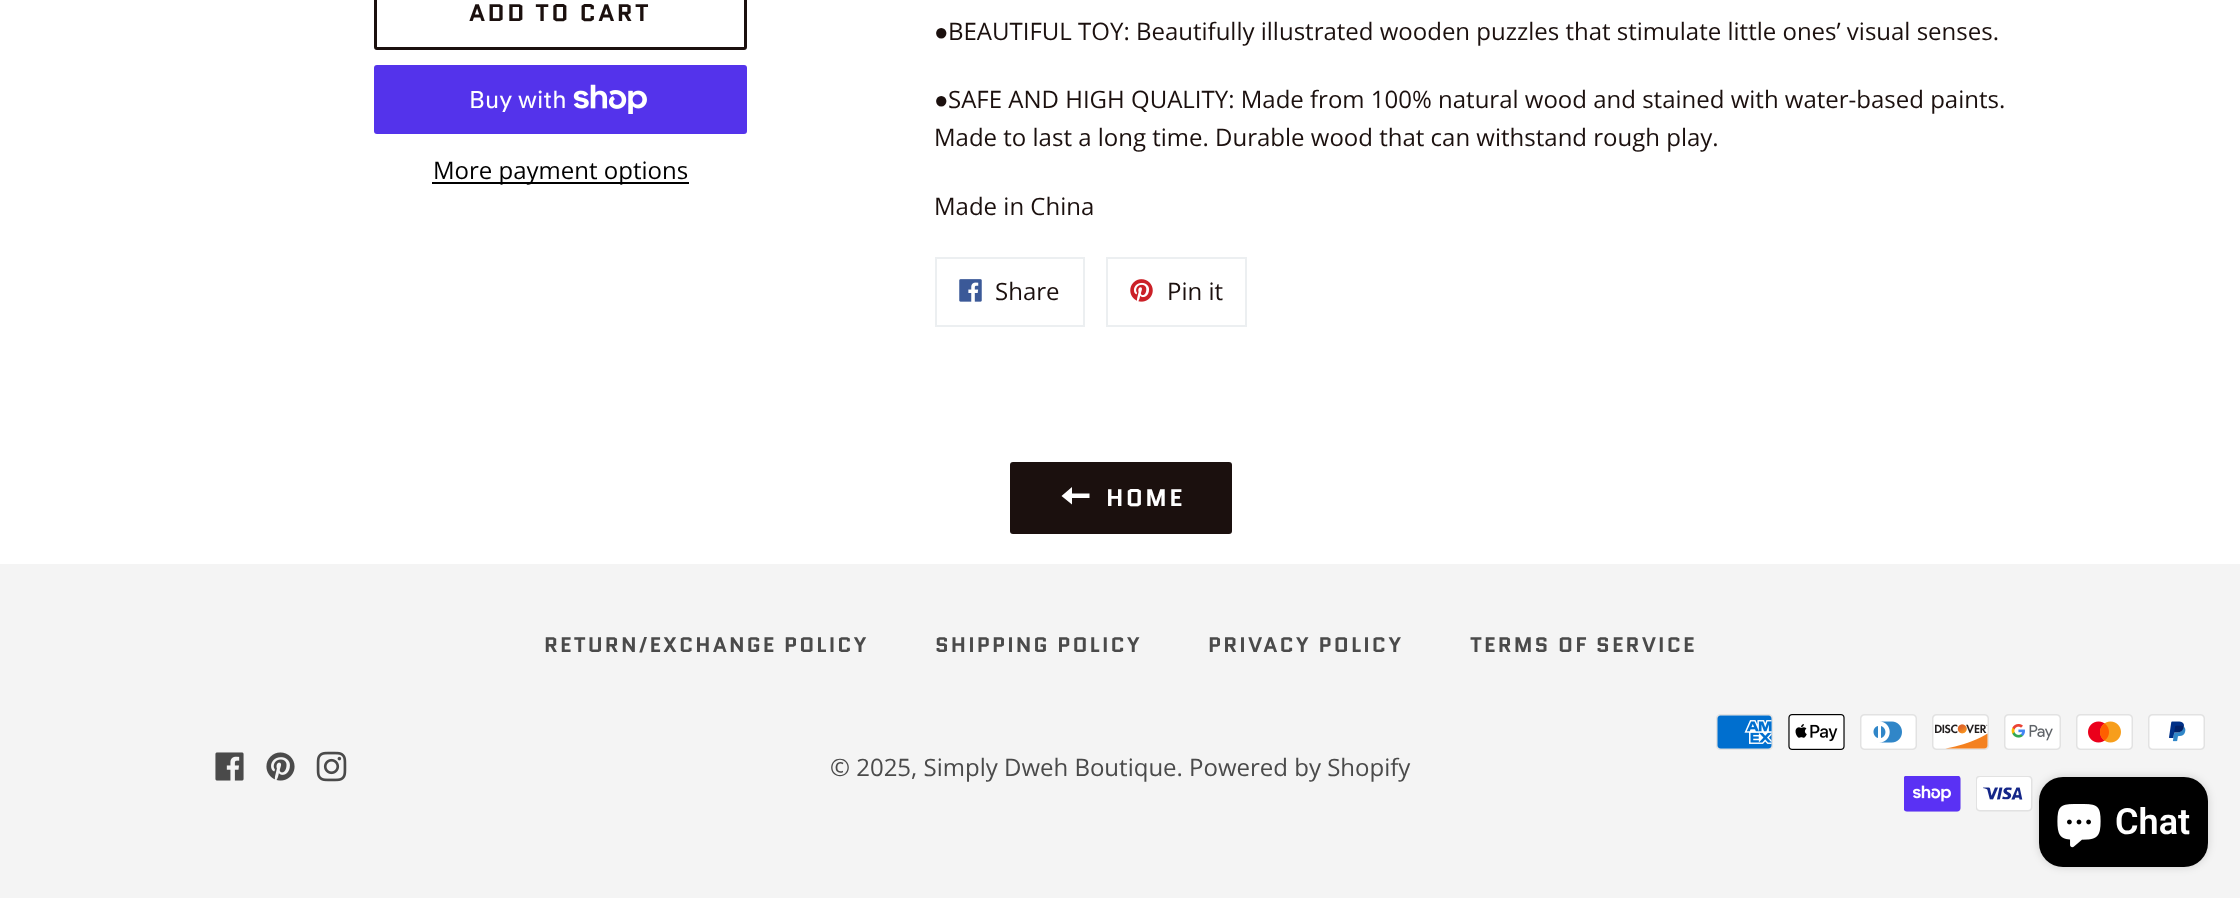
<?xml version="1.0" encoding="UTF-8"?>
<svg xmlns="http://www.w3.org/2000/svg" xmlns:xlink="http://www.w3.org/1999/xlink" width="2240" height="898">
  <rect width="100%" height="100%" fill="#ffffff" />
  <rect x="375.5" y="-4.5" width="370" height="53" rx="1.5" fill="none" stroke="#1b100e" stroke-width="3" />
  <rect x="374" y="65" width="373" height="69" rx="3" fill="#5433eb" />
  <image x="573" y="84" width="74" height="30" xlink:href="image1.png" />
  <rect x="432" y="182" width="257" height="2" fill="#000000" />
  <rect x="936" y="258" width="148" height="68" fill="none" stroke="#eceff1" stroke-width="2" />
  <image x="959" y="279" width="23" height="23" xlink:href="image2.png" />
  <rect x="1107" y="258" width="139" height="68" fill="none" stroke="#eceff1" stroke-width="2" />
  <image x="1130" y="279" width="23" height="23" xlink:href="image3.png" />
  <rect x="1010" y="462" width="222" height="72" rx="3" fill="#1b100e" />
  <path d="M 1072 493.5 v -6.5 l -10.5 9 l 10.5 8.5 v -6.5 h 17.5 v -4.5 z" fill="#ffffff" />
  <rect y="564" width="2240" height="334" fill="#f4f4f4" />
  <image x="215" y="752" width="29" height="29" xlink:href="image4.png" />
  <image x="266" y="752" width="29" height="29" xlink:href="image5.png" />
  <image x="316" y="751" width="31" height="31" xlink:href="image6.png" />
  <image x="1716" y="714" width="57" height="36" xlink:href="image7.png" />
  <image x="1788" y="714" width="57" height="36" xlink:href="image8.png" />
  <image x="1860" y="714" width="57" height="36" xlink:href="image9.png" />
  <image x="1932" y="714" width="57" height="36" xlink:href="image10.png" />
  <image x="2004" y="714" width="57" height="36" xlink:href="image11.png" />
  <image x="2076" y="714" width="57" height="36" xlink:href="image12.png" />
  <image x="2148" y="714" width="57" height="36" xlink:href="image13.png" />
  <image x="1904" y="776" width="57" height="36" xlink:href="image14.png" />
  <image x="1976" y="776" width="57" height="36" xlink:href="image15.png" />
  <rect x="2039" y="777" width="169" height="90" rx="24" fill="#000000" fill-opacity="0.15" filter="blur(4px)" />
  <rect x="2039" y="777" width="169" height="90" rx="24" fill="#000000" />
  <image x="2057" y="804" width="44" height="44" xlink:href="image16.png" />
  <text x="469" y="21" style="font-family: Quantico; font-size: 24px; font-weight: bold; letter-spacing: 2.4px; fill: #1b100e">ADD TO CART</text>
  <text x="469" y="108" style="font-family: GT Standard; font-size: 24px; fill: #ffffff">Buy with</text>
  <text x="433" y="179" style="font-family: Open Sans; font-size: 24px; fill: #000000">More payment options</text>
  <text x="934" y="40" style="font-family: Liberation Sans; font-size: 24px; fill: #1b100e">●</text>
  <text x="948" y="40" style="font-family: Open Sans; font-size: 24px; fill: #1b100e">BEAUTIFUL TOY: Beautifully illustrated wooden puzzles that stimulate little ones’ visual senses.</text>
  <text x="934" y="108" style="font-family: Liberation Sans; font-size: 24px; fill: #1b100e">●</text>
  <text x="948" y="108" style="font-family: Open Sans; font-size: 24px; fill: #1b100e">SAFE AND HIGH QUALITY: Made from 100% natural wood and stained with water-based paints.</text>
  <text x="934" y="146" style="font-family: Open Sans; font-size: 24px; fill: #1b100e">Made to last a long time. Durable wood that can withstand rough play.</text>
  <text x="934" y="215" style="font-family: Open Sans; font-size: 24px; fill: #1b100e">Made in China</text>
  <text x="995" y="300" style="font-family: Open Sans; font-size: 24px; fill: #1b100e">Share</text>
  <text x="1167" y="300" style="font-family: Open Sans; font-size: 24px; fill: #1b100e">Pin it</text>
  <text x="1106" y="506" style="font-family: Quantico; font-size: 24px; font-weight: bold; letter-spacing: 2.4px; fill: #ffffff">HOME</text>
  <text x="544" y="652" style="font-family: Quantico; font-size: 21px; font-weight: bold; letter-spacing: 2.1px; fill: #4a4a4a">RETURN/EXCHANGE POLICY</text>
  <text x="935" y="652" style="font-family: Quantico; font-size: 21px; font-weight: bold; letter-spacing: 2.1px; fill: #4a4a4a">SHIPPING POLICY</text>
  <text x="1208" y="652" style="font-family: Quantico; font-size: 21px; font-weight: bold; letter-spacing: 2.1px; fill: #4a4a4a">PRIVACY POLICY</text>
  <text x="1470" y="652" style="font-family: Quantico; font-size: 21px; font-weight: bold; letter-spacing: 2.1px; fill: #4a4a4a">TERMS OF SERVICE</text>
  <text x="830" y="776" style="font-family: Open Sans; font-size: 24px; fill: #4a4a4a">© 2025, Simply Dweh Boutique. Powered by Shopify</text>
  <text x="2115" y="834" style="font-family: Roboto; font-size: 36px; font-weight: 600; fill: #ffffff">Chat</text>
</svg>
